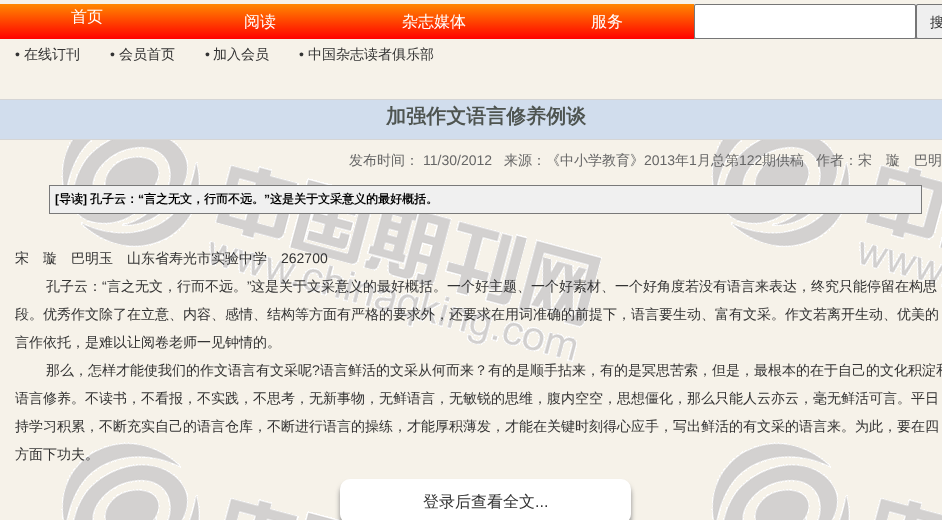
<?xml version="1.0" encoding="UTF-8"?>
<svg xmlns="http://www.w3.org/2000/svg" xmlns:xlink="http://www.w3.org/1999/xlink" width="942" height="520">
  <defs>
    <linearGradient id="g1" gradientUnits="userSpaceOnUse" x1="347" y1="4" x2="347" y2="39"><stop offset="0" stop-color="#ff8800" /><stop offset="1" stop-color="#ff0000" /></linearGradient>
    <linearGradient id="g2" gradientUnits="userSpaceOnUse" x1="833" y1="4" x2="833" y2="39"><stop offset="0" stop-color="#cecccb" /><stop offset="1" stop-color="#7a7979" /></linearGradient>
  </defs>
  <rect width="100%" height="100%" fill="#f6f2e9" />
  <rect y="4" width="694" height="35" fill="url(#g1)" />
  <rect x="694" y="4" width="224" height="35" fill="url(#g2)" />
  <rect x="694.5" y="4.5" width="221" height="34" rx="1.5" fill="#ffffff" stroke="#767676" />
  <rect x="916.5" y="4.5" width="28" height="34" rx="1.5" fill="#efefef" stroke="#767676" />
  <image x="61" y="140" width="881" height="380" xlink:href="image1.png" />
  <rect y="100" width="942" height="39" fill="#d1dded" />
  <rect y="99" width="942" height="1" fill="#d5d5d5" />
  <rect y="139" width="942" height="1" fill="#d5d5d5" />
  <rect x="49.5" y="185.5" width="872" height="28" fill="#f0f0f0" stroke="#797979" />
  <rect x="340" y="484" width="291" height="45" rx="10" fill="#888888" filter="blur(2.5px)" />
  <rect x="340" y="479" width="291" height="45" rx="10" fill="#ffffff" />
  <text x="71" y="22" style="font-family: WenQuanYi Zen Hei; font-size: 16px; font-weight: 500; fill: #ffffff">首页</text>
  <text x="244" y="27" style="font-family: WenQuanYi Zen Hei; font-size: 16px; font-weight: 500; fill: #ffffff">阅读</text>
  <text x="402" y="27" style="font-family: WenQuanYi Zen Hei; font-size: 16px; font-weight: 500; fill: #ffffff">杂志媒体</text>
  <text x="591" y="27" style="font-family: WenQuanYi Zen Hei; font-size: 16px; font-weight: 500; fill: #ffffff">服务</text>
  <text x="930" y="27" style="font-family: WenQuanYi Zen Hei; font-size: 14px; font-weight: 500; fill: #333333">搜</text>
  <text x="15" y="59" style="font-family: Liberation Sans; font-size: 14px; fill: #333333">•</text>
  <text x="24" y="59" style="font-family: WenQuanYi Zen Hei; font-size: 14px; font-weight: 500; fill: #333333">在线订刊</text>
  <text x="110" y="59" style="font-family: Liberation Sans; font-size: 14px; fill: #333333">•</text>
  <text x="119" y="59" style="font-family: WenQuanYi Zen Hei; font-size: 14px; font-weight: 500; fill: #333333">会员首页</text>
  <text x="205" y="59" style="font-family: Liberation Sans; font-size: 14px; fill: #333333">•</text>
  <text x="213" y="59" style="font-family: WenQuanYi Zen Hei; font-size: 14px; font-weight: 500; fill: #333333">加入会员</text>
  <text x="299" y="59" style="font-family: Liberation Sans; font-size: 14px; fill: #333333">•</text>
  <text x="308" y="59" style="font-family: WenQuanYi Zen Hei; font-size: 14px; font-weight: 500; fill: #333333">中国杂志读者俱乐部</text>
  <text x="386" y="123" style="font-family: WenQuanYi Zen Hei; font-size: 20px; font-weight: bold; fill: #4e5450">加强作文语言修养例谈</text>
  <text x="349" y="165" style="font-family: WenQuanYi Zen Hei; font-size: 14px; font-weight: 500; fill: #666666">发布时间：</text>
  <text x="423" y="165" style="font-family: Liberation Sans; font-size: 14px; fill: #666666">11/30/2012</text>
  <text x="504" y="165" style="font-family: WenQuanYi Zen Hei; font-size: 14px; font-weight: 500; fill: #666666">来源：《中小学教育》</text>
  <text x="644" y="165" style="font-family: Liberation Sans; font-size: 14px; fill: #666666">2013</text>
  <text x="675" y="165" style="font-family: WenQuanYi Zen Hei; font-size: 14px; font-weight: 500; fill: #666666">年</text>
  <text x="689" y="165" style="font-family: Liberation Sans; font-size: 14px; fill: #666666">1</text>
  <text x="697" y="165" style="font-family: WenQuanYi Zen Hei; font-size: 14px; font-weight: 500; fill: #666666">月总第</text>
  <text x="739" y="165" style="font-family: Liberation Sans; font-size: 14px; fill: #666666">122</text>
  <text x="762" y="165" style="font-family: WenQuanYi Zen Hei; font-size: 14px; font-weight: 500; fill: #666666">期供稿</text>
  <text x="816" y="165" style="font-family: WenQuanYi Zen Hei; font-size: 14px; font-weight: 500; fill: #666666">作者：宋　璇　巴明</text>
  <text x="55" y="203" style="font-family: Liberation Sans; font-size: 12px; font-weight: bold; fill: #000000">[</text>
  <text x="59" y="203" style="font-family: WenQuanYi Zen Hei; font-size: 12px; font-weight: bold; fill: #000000">导读</text>
  <text x="83" y="203" style="font-family: Liberation Sans; font-size: 12px; font-weight: bold; fill: #000000">]</text>
  <text x="90" y="203" style="font-family: WenQuanYi Zen Hei; font-size: 12px; font-weight: bold; fill: #000000">孔子云：</text>
  <text x="138" y="203" style="font-family: Liberation Sans; font-size: 12px; font-weight: bold; fill: #000000">“</text>
  <text x="144" y="203" style="font-family: WenQuanYi Zen Hei; font-size: 12px; font-weight: bold; fill: #000000">言之无文，行而不远。</text>
  <text x="264" y="203" style="font-family: Liberation Sans; font-size: 12px; font-weight: bold; fill: #000000">”</text>
  <text x="270" y="203" style="font-family: WenQuanYi Zen Hei; font-size: 12px; font-weight: bold; fill: #000000">这是关于文采意义的最好概括。</text>
  <text x="15" y="263" style="font-family: WenQuanYi Zen Hei; font-size: 14px; font-weight: 500; fill: #333333">宋　璇　巴明玉　山东省寿光市实验中学</text>
  <text x="281" y="263" style="font-family: Liberation Sans; font-size: 14px; fill: #333333">262700</text>
  <text x="46" y="291" style="font-family: WenQuanYi Zen Hei; font-size: 14px; font-weight: 500; fill: #333333">孔子云：</text>
  <text x="102" y="291" style="font-family: Liberation Sans; font-size: 14px; fill: #333333">“</text>
  <text x="107" y="291" style="font-family: WenQuanYi Zen Hei; font-size: 14px; font-weight: 500; fill: #333333">言之无文，行而不远。</text>
  <text x="247" y="291" style="font-family: Liberation Sans; font-size: 14px; fill: #333333">”</text>
  <text x="251" y="291" style="font-family: WenQuanYi Zen Hei; font-size: 14px; font-weight: 500; fill: #333333">这是关于文采意义的最好概括。一个好主题、一个好素材、一个好角度若没有语言来表达，终究只能停留在构思</text>
  <text x="15" y="319" style="font-family: WenQuanYi Zen Hei; font-size: 14px; font-weight: 500; fill: #333333">段。优秀作文除了在立意、内容、感情、结构等方面有严格的要求外，还要求在用词准确的前提下，语言要生动、富有文采。作文若离开生动、优美的</text>
  <text x="15" y="347" style="font-family: WenQuanYi Zen Hei; font-size: 14px; font-weight: 500; fill: #333333">言作依托，是难以让阅卷老师一见钟情的。</text>
  <text x="46" y="375" style="font-family: WenQuanYi Zen Hei; font-size: 14px; font-weight: 500; fill: #333333">那么，怎样才能使我们的作文语言有文采呢</text>
  <text x="312" y="375" style="font-family: Liberation Sans; font-size: 14px; fill: #333333">?</text>
  <text x="320" y="375" style="font-family: WenQuanYi Zen Hei; font-size: 14px; font-weight: 500; fill: #333333">语言鲜活的文采从何而来？有的是顺手拈来，有的是冥思苦索，但是，最根本的在于自己的文化积淀和</text>
  <text x="15" y="403" style="font-family: WenQuanYi Zen Hei; font-size: 14px; font-weight: 500; fill: #333333">语言修养。不读书，不看报，不实践，不思考，无新事物，无鲜语言，无敏锐的思维，腹内空空，思想僵化，那么只能人云亦云，毫无鲜活可言。平日</text>
  <text x="15" y="431" style="font-family: WenQuanYi Zen Hei; font-size: 14px; font-weight: 500; fill: #333333">持学习积累，不断充实自己的语言仓库，不断进行语言的操练，才能厚积薄发，才能在关键时刻得心应手，写出鲜活的有文采的语言来。为此，要在四</text>
  <text x="15" y="459" style="font-family: WenQuanYi Zen Hei; font-size: 14px; font-weight: 500; fill: #333333">方面下功夫。</text>
  <text x="423" y="507" style="font-family: WenQuanYi Zen Hei; font-size: 16px; font-weight: 500; fill: #333333">登录后查看全文</text>
  <text x="535" y="507" style="font-family: Liberation Sans; font-size: 16px; fill: #333333">...</text>
</svg>
